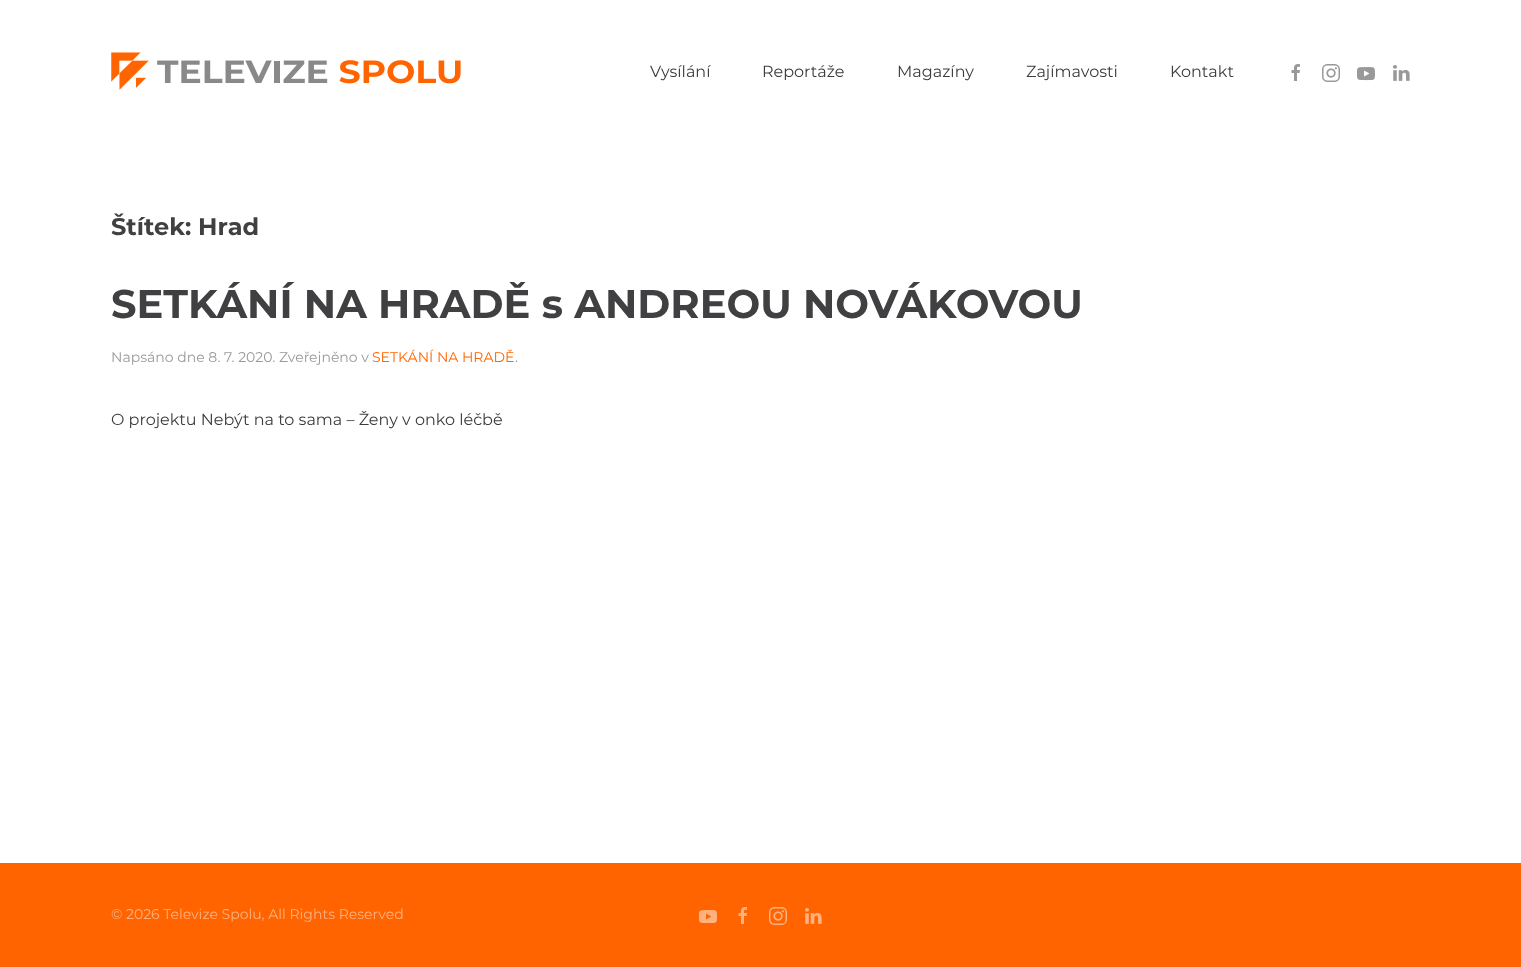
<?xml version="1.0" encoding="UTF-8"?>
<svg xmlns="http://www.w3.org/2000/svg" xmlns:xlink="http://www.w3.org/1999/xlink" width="1521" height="967">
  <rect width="100%" height="100%" fill="#ffffff" />
  <image x="111" y="52" width="350" height="38" xlink:href="image1.png" />
  <image x="1291" y="64" width="9" height="17" xlink:href="image2.png" />
  <image x="1322" y="64" width="18" height="18" xlink:href="image3.png" />
  <image x="1357" y="67" width="18" height="14" xlink:href="image4.png" />
  <image x="1393" y="65" width="17" height="16" xlink:href="image5.png" />
  <rect y="863" width="1521" height="104" fill="#ff6400" />
  <image x="699" y="910" width="18" height="14" xlink:href="image6.png" />
  <image x="738" y="907" width="9" height="17" xlink:href="image7.png" />
  <image x="769" y="907" width="18" height="18" xlink:href="image8.png" />
  <image x="805" y="908" width="17" height="16" xlink:href="image9.png" />
  <text x="650" y="77" style="font-family: Montserrat; font-size: 16px; fill: #3c3c3c">Vysílání</text>
  <text x="762" y="77" style="font-family: Montserrat; font-size: 16px; fill: #3c3c3c">Reportáže</text>
  <text x="897" y="77" style="font-family: Montserrat; font-size: 16px; fill: #3c3c3c">Magazíny</text>
  <text x="1026" y="77" style="font-family: Montserrat; font-size: 16px; fill: #3c3c3c">Zajímavosti</text>
  <text x="1170" y="77" style="font-family: Montserrat; font-size: 16px; fill: #3c3c3c">Kontakt</text>
  <text x="111" y="235" style="font-family: Montserrat; font-size: 24px; font-weight: bold; fill: #404042">Štítek: Hrad</text>
  <text x="111" y="318" style="font-family: Montserrat; font-size: 40px; font-weight: bold; fill: #404042">SETKÁNÍ NA HRADĚ s ANDREOU NOVÁKOVOU</text>
  <text x="111" y="362" style="font-family: Montserrat; font-size: 14px; fill: #999999">Napsáno dne 8. 7. 2020. Zveřejněno v</text>
  <text x="372" y="362" style="font-family: Montserrat; font-size: 14px; fill: #ff6400">SETKÁNÍ NA HRADĚ</text>
  <text x="515" y="362" style="font-family: Montserrat; font-size: 14px; fill: #999999">.</text>
  <text x="111" y="425" style="font-family: Montserrat; font-size: 16px; fill: #3c3c3c">O projektu Nebýt na to sama – Ženy v onko léčbě</text>
  <text x="111" y="919" style="font-family: Montserrat; font-size: 14px; fill: #ffb280">© 2026 Televize Spolu, All Rights Reserved</text>
</svg>
